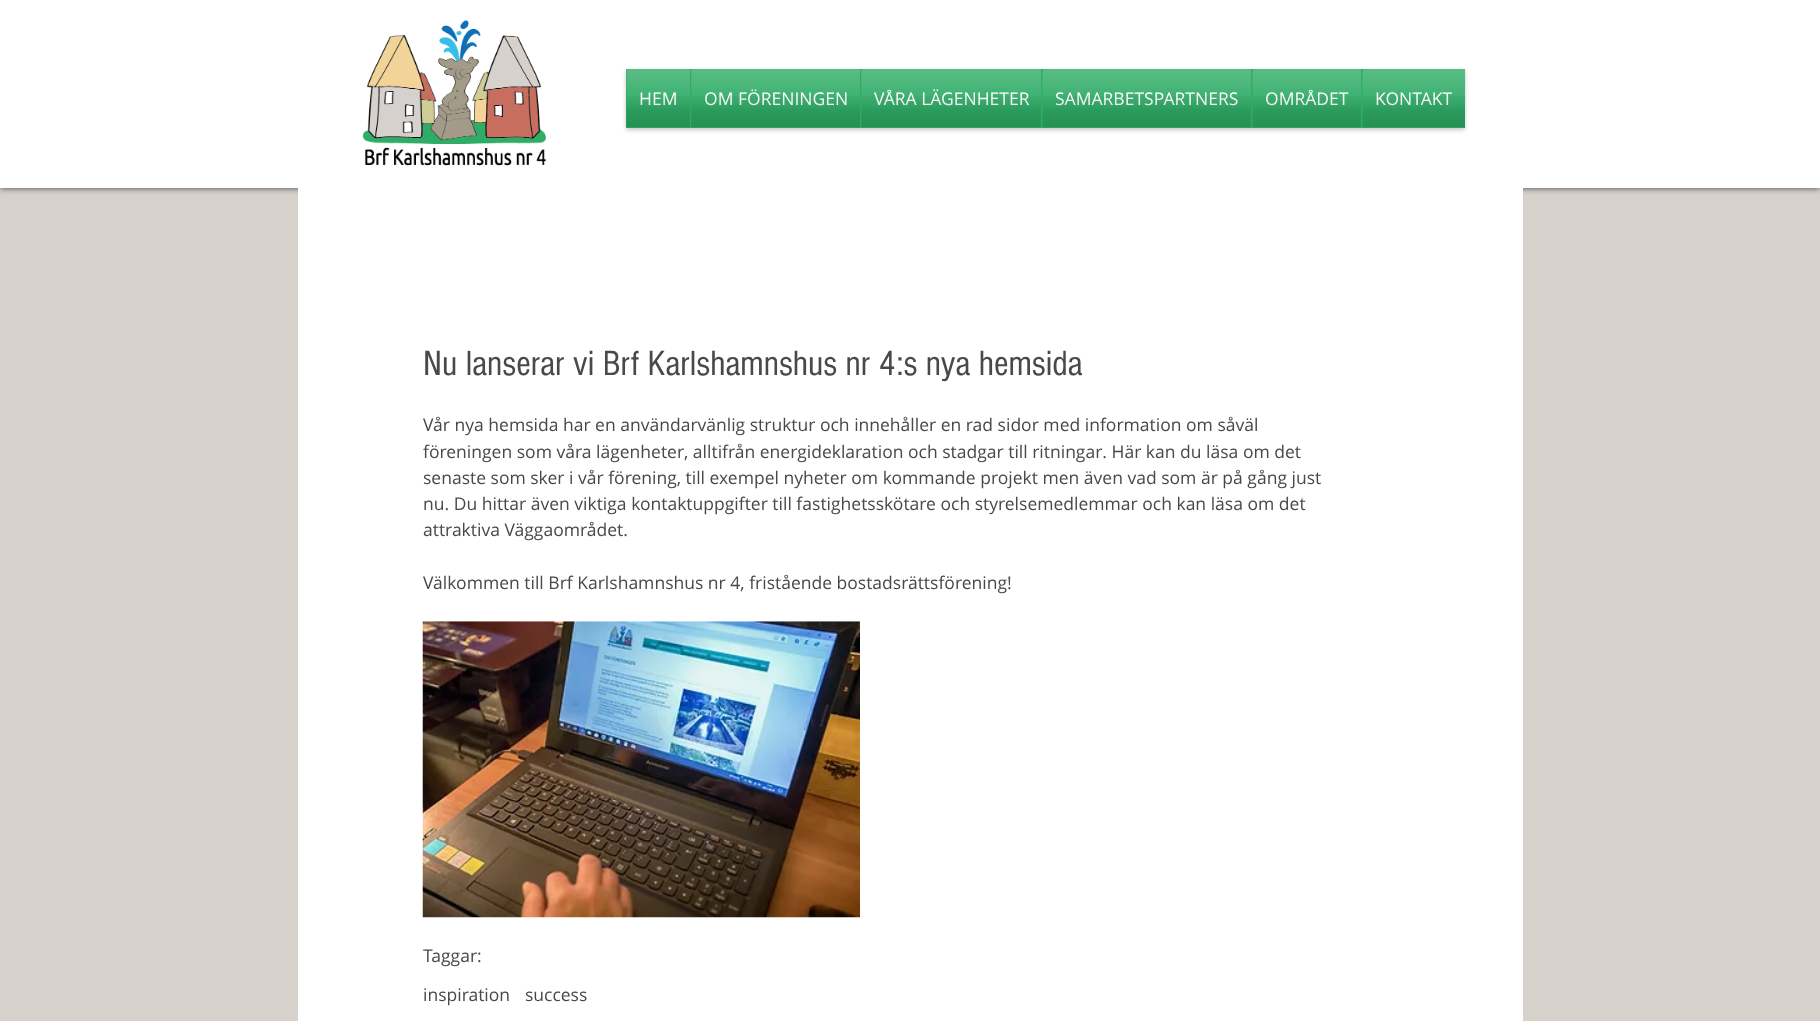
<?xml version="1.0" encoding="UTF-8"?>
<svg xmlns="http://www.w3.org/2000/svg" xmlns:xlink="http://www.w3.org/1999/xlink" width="1820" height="1021">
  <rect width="100%" height="100%" fill="#d7d1cc" />
  <rect width="1820" height="188" fill="#000000" fill-opacity="0.7" filter="blur(3px)" />
  <rect width="1820" height="188" fill="#ffffff" />
  <image x="363" y="20" width="183" height="146" xlink:href="image1.png" />
  <rect x="626" y="71" width="839" height="59" fill="#a29e9e" fill-opacity="0.6" filter="blur(2px)" />
  <rect x="626" y="69" width="839" height="59" fill="#2fac66" />
  <rect x="298" y="188" width="1225" height="833" fill="#ffffff" />
  <image x="422" y="621" width="438" height="297" xlink:href="image14.png" />
  <text x="639" y="105" style="font-family: Open Sans; font-size: 17.5px; fill: #ffffff">HEM</text>
  <image x="626" y="69" width="64" height="40" xlink:href="image2.png" />
  <image x="626" y="96" width="64" height="32" xlink:href="image3.png" />
  <text x="704" y="105" style="font-family: Open Sans; font-size: 17.5px; fill: #ffffff">OM FÖRENINGEN</text>
  <image x="691" y="69" width="169" height="40" xlink:href="image4.png" />
  <image x="691" y="96" width="169" height="32" xlink:href="image5.png" />
  <text x="874" y="105" style="font-family: Open Sans; font-size: 17.5px; fill: #ffffff">VÅRA LÄGENHETER</text>
  <image x="861" y="69" width="180" height="40" xlink:href="image6.png" />
  <image x="861" y="96" width="180" height="32" xlink:href="image7.png" />
  <text x="1055" y="105" style="font-family: Open Sans; font-size: 17.5px; fill: #ffffff">SAMARBETSPARTNERS</text>
  <image x="1042" y="69" width="209" height="40" xlink:href="image8.png" />
  <image x="1042" y="96" width="209" height="32" xlink:href="image9.png" />
  <text x="1265" y="105" style="font-family: Open Sans; font-size: 17.5px; fill: #ffffff">OMRÅDET</text>
  <image x="1252" y="69" width="109" height="40" xlink:href="image10.png" />
  <image x="1252" y="96" width="109" height="32" xlink:href="image11.png" />
  <text x="1375" y="105" style="font-family: Open Sans; font-size: 17.5px; fill: #ffffff">KONTAKT</text>
  <image x="1362" y="69" width="103" height="40" xlink:href="image12.png" />
  <image x="1362" y="96" width="103" height="32" xlink:href="image13.png" />
  <text x="423" y="375" style="font-family: 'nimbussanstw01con'; font-size: 36.25px; fill: #4a4848">Nu lanserar vi Brf Karlshamnshus nr 4:s nya hemsida</text>
  <text x="423" y="431" style="font-family: Open Sans; font-size: 17.5px; fill: #4a4848">Vår nya hemsida har en användarvänlig struktur och innehåller en rad sidor med information om såväl</text>
  <text x="423" y="458" style="font-family: Open Sans; font-size: 17.5px; fill: #4a4848">föreningen som våra lägenheter, alltifrån energideklaration och stadgar till ritningar. Här kan du läsa om det</text>
  <text x="423" y="484" style="font-family: Open Sans; font-size: 17.5px; fill: #4a4848">senaste som sker i vår förening, till exempel nyheter om kommande projekt men även vad som är på gång just</text>
  <text x="423" y="510" style="font-family: Open Sans; font-size: 17.5px; fill: #4a4848">nu. Du hittar även viktiga kontaktuppgifter till fastighetsskötare och styrelsemedlemmar och kan läsa om det</text>
  <text x="423" y="536" style="font-family: Open Sans; font-size: 17.5px; fill: #4a4848">attraktiva Väggaområdet.</text>
  <text x="423" y="589" style="font-family: Open Sans; font-size: 17.5px; fill: #4a4848">Välkommen till Brf Karlshamnshus nr 4, fristående bostadsrättsförening!</text>
  <text x="423" y="962" style="font-family: Open Sans; font-size: 17.5px; fill: #4a4848">Taggar:</text>
  <text x="423" y="1001" style="font-family: Open Sans; font-size: 17.5px; fill: #4a4848">inspiration</text>
  <text x="525" y="1001" style="font-family: Open Sans; font-size: 17.5px; fill: #4a4848">success</text>
</svg>
